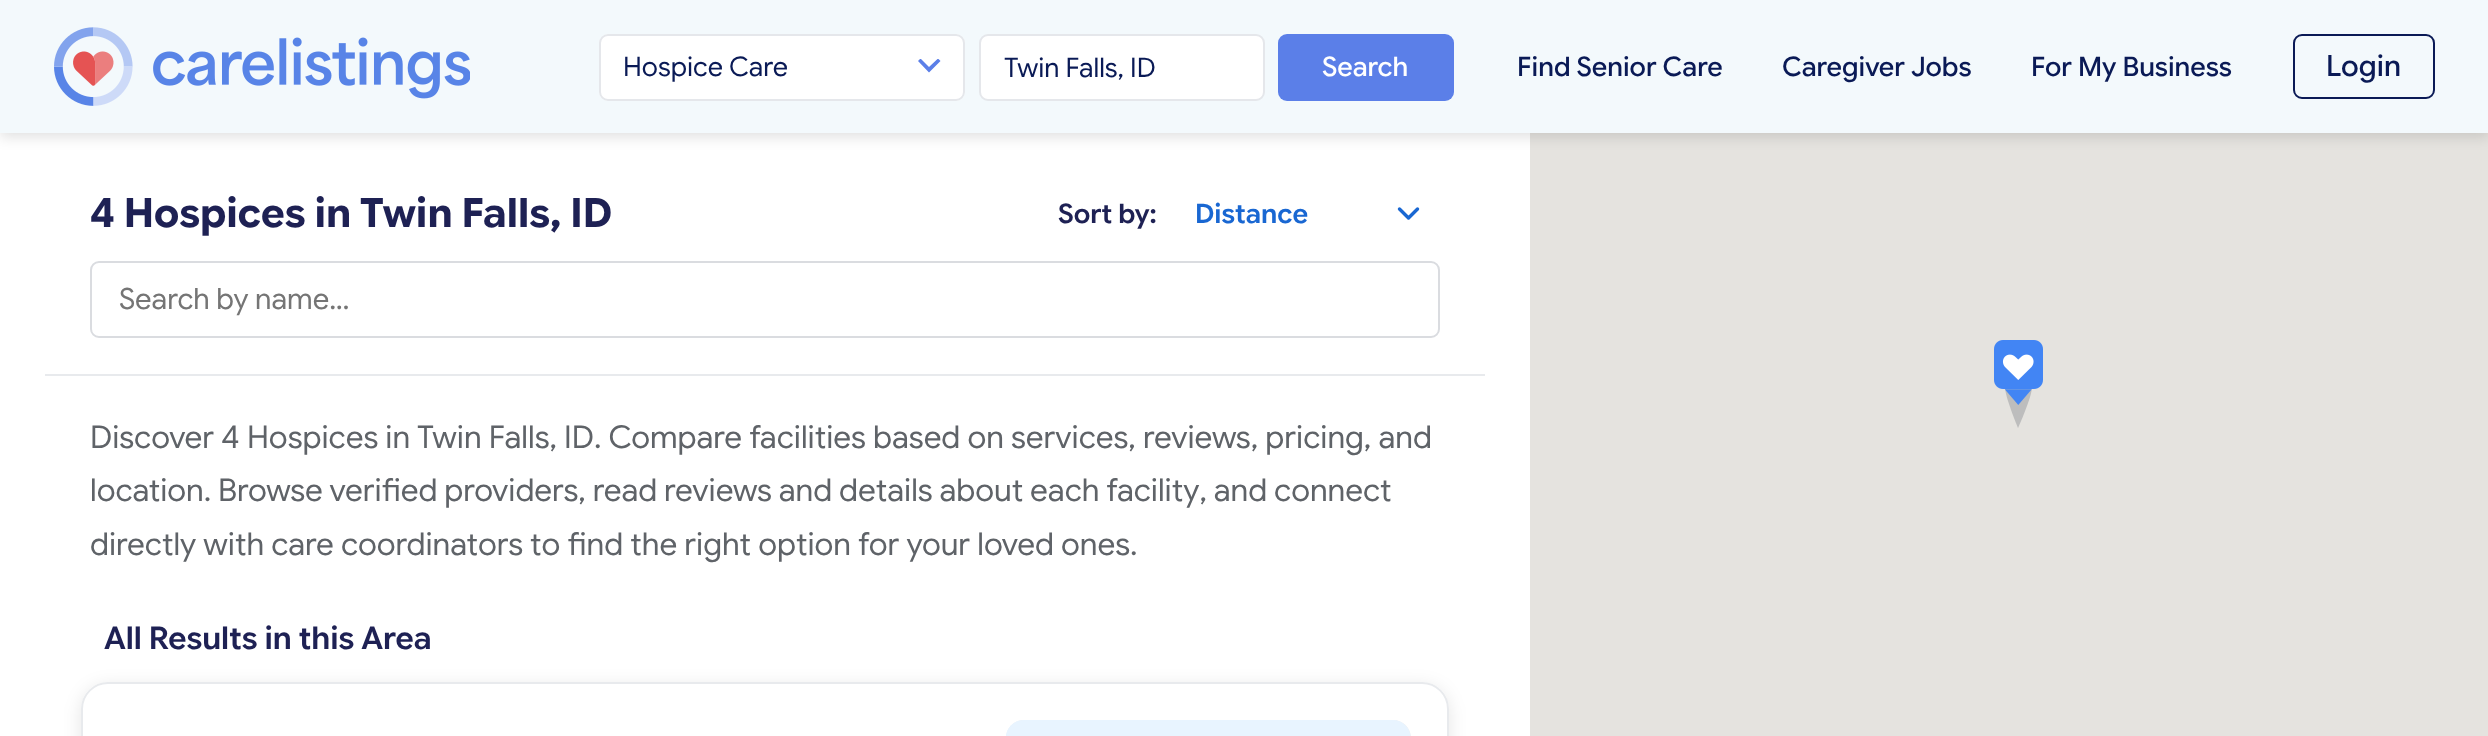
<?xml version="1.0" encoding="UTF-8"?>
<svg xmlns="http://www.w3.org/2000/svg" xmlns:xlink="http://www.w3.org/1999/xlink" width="2488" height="736">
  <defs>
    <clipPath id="clip1"><rect x="918" y="59" width="23" height="15" /></clipPath>
  </defs>
  <rect width="100%" height="100%" fill="#ffffff" />
  <rect x="1530" y="133" width="958" height="603" fill="#e5e3df" />
  <rect y="5" width="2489" height="132" fill="#000000" fill-opacity="0.12" filter="blur(7px)" />
  <rect width="2488" height="133" fill="#f3f9fc" />
  <image x="54" y="27" width="416" height="79" xlink:href="image1.png" />
  <rect x="599" y="34" width="366" height="67" rx="9" fill="#ffffff" />
  <g clip-path="url(#clip1)">
    <path d="M 920.5 58.5 l 8.5 8.5 l 9 -8.5 l 2.5 2.5 l -11.5 11.5 l -11 -11.5 z" fill="#5b7fe8" />
  </g>
  <rect x="600" y="35" width="364" height="65" rx="8" fill="none" stroke="#e5e7eb" stroke-width="2" />
  <rect x="980" y="35" width="284" height="65" rx="8" fill="#ffffff" stroke="#e5e7eb" stroke-width="2" />
  <rect x="1278" y="34" width="176" height="67" rx="9" fill="#5b7fe8" />
  <rect x="2294" y="35" width="140" height="63" rx="8" fill="none" stroke="#0a1a56" stroke-width="2" />
  <path d="M 1399.5 209 l 9 9 l 9 -9" fill="none" stroke="#1967d2" stroke-width="3.4" stroke-linecap="round" stroke-linejoin="round" />
  <rect x="91" y="262" width="1348" height="75" rx="8" fill="none" stroke="#dadce0" stroke-width="2" />
  <rect x="45" y="374" width="1440" height="2" fill="#e8eaed" />
  <rect x="81" y="686" width="1368" height="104" rx="27" fill="#000000" fill-opacity="0.1" filter="blur(9px)" />
  <path d="M 108 682 h 1314 c 15 0 27 12 27 27 v 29 h -1368 v -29 c 0 -15 12 -27 27 -27 z" fill="#ffffff" />
  <rect x="82" y="683" width="1366" height="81" rx="26" fill="none" stroke="#e8eaed" stroke-width="2" />
  <path d="M 1024 720 h 369 c 10 0 18 8 18 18 h -405 c 0 -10 8 -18 18 -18 z" fill="#f0f0f0" />
  <image x="1006" y="720" width="405" height="16" xlink:href="image2.png" />
  <path d="M 2018 374 c -7 0 -13 6 -13 13 c 0 10 13 41 13 41 c 0 0 14 -31 14 -41 c 0 -7 -6 -13 -14 -13 z" fill="#bdbdbd" />
  <image x="1994" y="340" width="49" height="65" xlink:href="image3.png" />
  <text x="623" y="76" style="font-family: 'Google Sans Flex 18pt'; font-size: 27px; fill: #0a1a56">Hospice Care</text>
  <text x="1004" y="77" style="font-family: 'Google Sans Flex 18pt'; font-size: 27px; fill: #0a1a56">Twin Falls, ID</text>
  <text x="1322" y="76" style="font-family: 'Google Sans Flex 18pt'; font-size: 27px; font-weight: 500; fill: #ffffff">Search</text>
  <text x="1517" y="76" style="font-family: 'Google Sans Flex 18pt'; font-size: 27px; font-weight: 500; fill: #0a1a56">Find Senior Care</text>
  <text x="1782" y="76" style="font-family: 'Google Sans Flex 18pt'; font-size: 27px; font-weight: 500; fill: #0a1a56">Caregiver Jobs</text>
  <text x="2031" y="76" style="font-family: 'Google Sans Flex 18pt'; font-size: 27px; font-weight: 500; fill: #0a1a56">For My Business</text>
  <text x="2326" y="76" style="font-family: 'Google Sans Flex 18pt'; font-size: 29.25px; font-weight: 500; fill: #0a1a56">Login</text>
  <text x="90" y="227" style="font-family: 'Google Sans Flex 18pt'; font-size: 40.5px; font-weight: bold; fill: #1e2154">4 Hospices in Twin Falls, ID</text>
  <text x="1058" y="223" style="font-family: 'Google Sans Flex 18pt'; font-size: 27px; font-weight: 600; fill: #1e2154">Sort by:</text>
  <text x="1195" y="223" style="font-family: 'Google Sans Flex 18pt'; font-size: 27px; font-weight: 600; fill: #1967d2">Distance</text>
  <text x="119" y="309" style="font-family: 'Google Sans Flex 18pt'; font-size: 29.25px; fill: #757575">Search by name...</text>
  <text x="90" y="448" style="font-family: 'Google Sans Flex 18pt'; font-size: 31.5px; fill: #5f6368">Discover 4 Hospices in</text>
  <text x="417" y="448" style="font-family: 'Google Sans Flex 18pt'; font-size: 31.5px; fill: #5f6368">Twin Falls, ID</text>
  <text x="594" y="448" style="font-family: 'Google Sans Flex 18pt'; font-size: 31.5px; fill: #5f6368">. Compare facilities based on services, reviews, pricing, and</text>
  <text x="90" y="501" style="font-family: 'Google Sans Flex 18pt'; font-size: 31.5px; fill: #5f6368">location.</text>
  <text x="218" y="501" word-spacing="-0.25" style="font-family: 'Google Sans Flex 18pt'; font-size: 31.5px; fill: #5f6368">Browse verified providers, read reviews and details about each facility, and connect</text>
  <text x="90" y="555" style="font-family: 'Google Sans Flex 18pt'; font-size: 31.5px; fill: #5f6368">directly with care coordinators to find the right option for your loved ones.</text>
  <text x="104" y="649" style="font-family: 'Google Sans Flex 18pt'; font-size: 31.5px; font-weight: 600; fill: #1e2154">All Results in this Area</text>
</svg>
